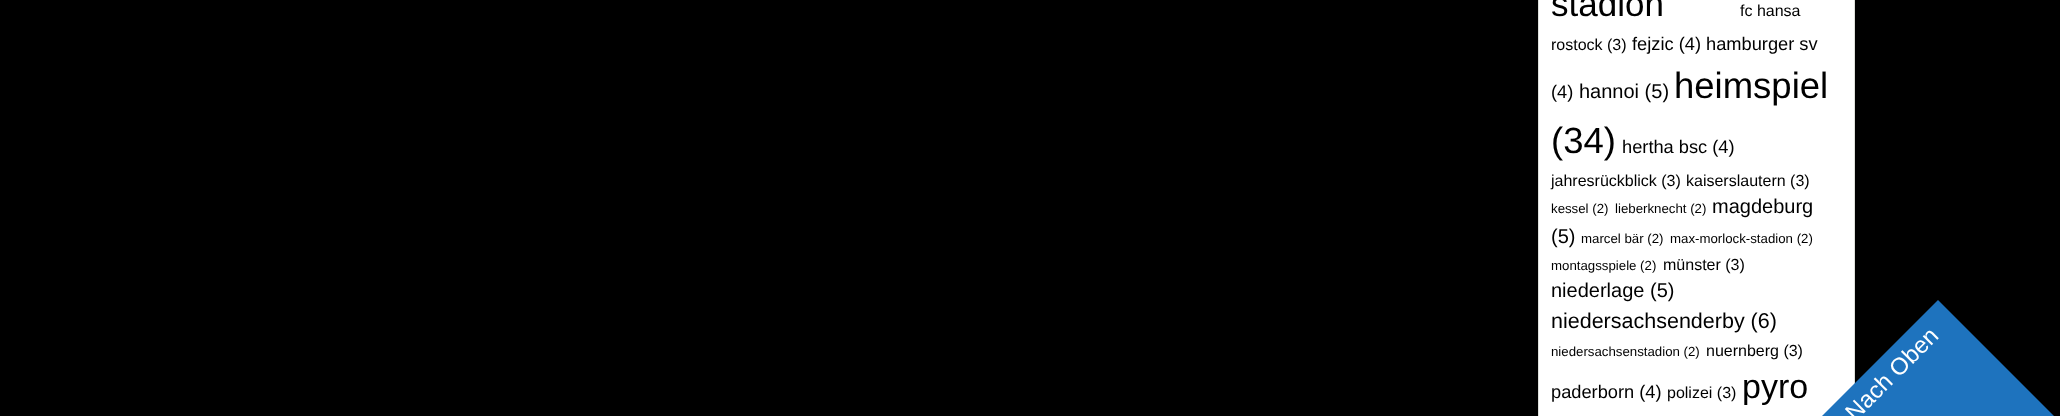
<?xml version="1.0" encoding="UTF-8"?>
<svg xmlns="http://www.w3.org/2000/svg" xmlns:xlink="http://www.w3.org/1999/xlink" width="2060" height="416">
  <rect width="100%" height="100%" fill="#000000" />
  <rect x="1538.5" y="-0.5" width="316" height="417" fill="#ffffff" stroke="#dee0db" />
  <path d="M 1819 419 l 119 -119 l 119 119 l -119 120 z" fill="#1e73be" />
  <text x="1551" y="16" style="font-family: Liberation Sans; font-size: 35px; fill: #000000">stadion</text>
  <text x="1740" y="16" style="font-family: Liberation Sans; font-size: 16px; fill: #000000">fc hansa</text>
  <text x="1551" y="50" style="font-family: Liberation Sans; font-size: 16px; fill: #000000">rostock (3)</text>
  <text x="1632" y="50" style="font-family: Liberation Sans; font-size: 18.25px; fill: #000000">fejzic (4)</text>
  <text x="1706" y="50" style="font-family: Liberation Sans; font-size: 18.25px; fill: #000000">hamburger sv</text>
  <text x="1551" y="98" style="font-family: Liberation Sans; font-size: 18.25px; fill: #000000">(4)</text>
  <text x="1579" y="98" style="font-family: Liberation Sans; font-size: 20px; fill: #000000">hannoi (5)</text>
  <text x="1674" y="98" style="font-family: Liberation Sans; font-size: 36.5px; fill: #000000">heimspiel</text>
  <text x="1551" y="153" style="font-family: Liberation Sans; font-size: 36.5px; fill: #000000">(34)</text>
  <text x="1622" y="153" style="font-family: Liberation Sans; font-size: 18.25px; fill: #000000">hertha bsc (4)</text>
  <text x="1551" y="186" style="font-family: Liberation Sans; font-size: 16px; fill: #000000">jahresrückblick (3)</text>
  <text x="1686" y="186" style="font-family: Liberation Sans; font-size: 16px; fill: #000000">kaiserslautern (3)</text>
  <text x="1551" y="213" style="font-family: Liberation Sans; font-size: 13.25px; fill: #000000">kessel (2)</text>
  <text x="1615" y="213" style="font-family: Liberation Sans; font-size: 13.25px; fill: #000000">lieberknecht (2)</text>
  <text x="1712" y="213" style="font-family: Liberation Sans; font-size: 20px; fill: #000000">magdeburg</text>
  <text x="1551" y="243" style="font-family: Liberation Sans; font-size: 20px; fill: #000000">(5)</text>
  <text x="1581" y="243" style="font-family: Liberation Sans; font-size: 13.25px; fill: #000000">marcel bär (2)</text>
  <text x="1670" y="243" style="font-family: Liberation Sans; font-size: 13.25px; fill: #000000">max-morlock-stadion (2)</text>
  <text x="1551" y="270" style="font-family: Liberation Sans; font-size: 13.25px; fill: #000000">montagsspiele (2)</text>
  <text x="1663" y="270" style="font-family: Liberation Sans; font-size: 16px; fill: #000000">münster (3)</text>
  <text x="1551" y="297" style="font-family: Liberation Sans; font-size: 20px; fill: #000000">niederlage (5)</text>
  <text x="1551" y="328" style="font-family: Liberation Sans; font-size: 21.5px; fill: #000000">niedersachsenderby (6)</text>
  <text x="1551" y="356" style="font-family: Liberation Sans; font-size: 13.25px; fill: #000000">niedersachsenstadion (2)</text>
  <text x="1706" y="356" style="font-family: Liberation Sans; font-size: 16px; fill: #000000">nuernberg (3)</text>
  <text x="1551" y="398" style="font-family: Liberation Sans; font-size: 18.25px; fill: #000000">paderborn (4)</text>
  <text x="1667" y="398" style="font-family: Liberation Sans; font-size: 16px; fill: #000000">polizei (3)</text>
  <text x="1742" y="398" style="font-family: Liberation Sans; font-size: 34px; fill: #000000">pyro</text>
  <text x="1855" y="422" transform="rotate(-45 1855 422)" style="font-family: Liberation Sans; font-size: 23.75px; fill: #ffffff">Nach Oben</text>
</svg>
